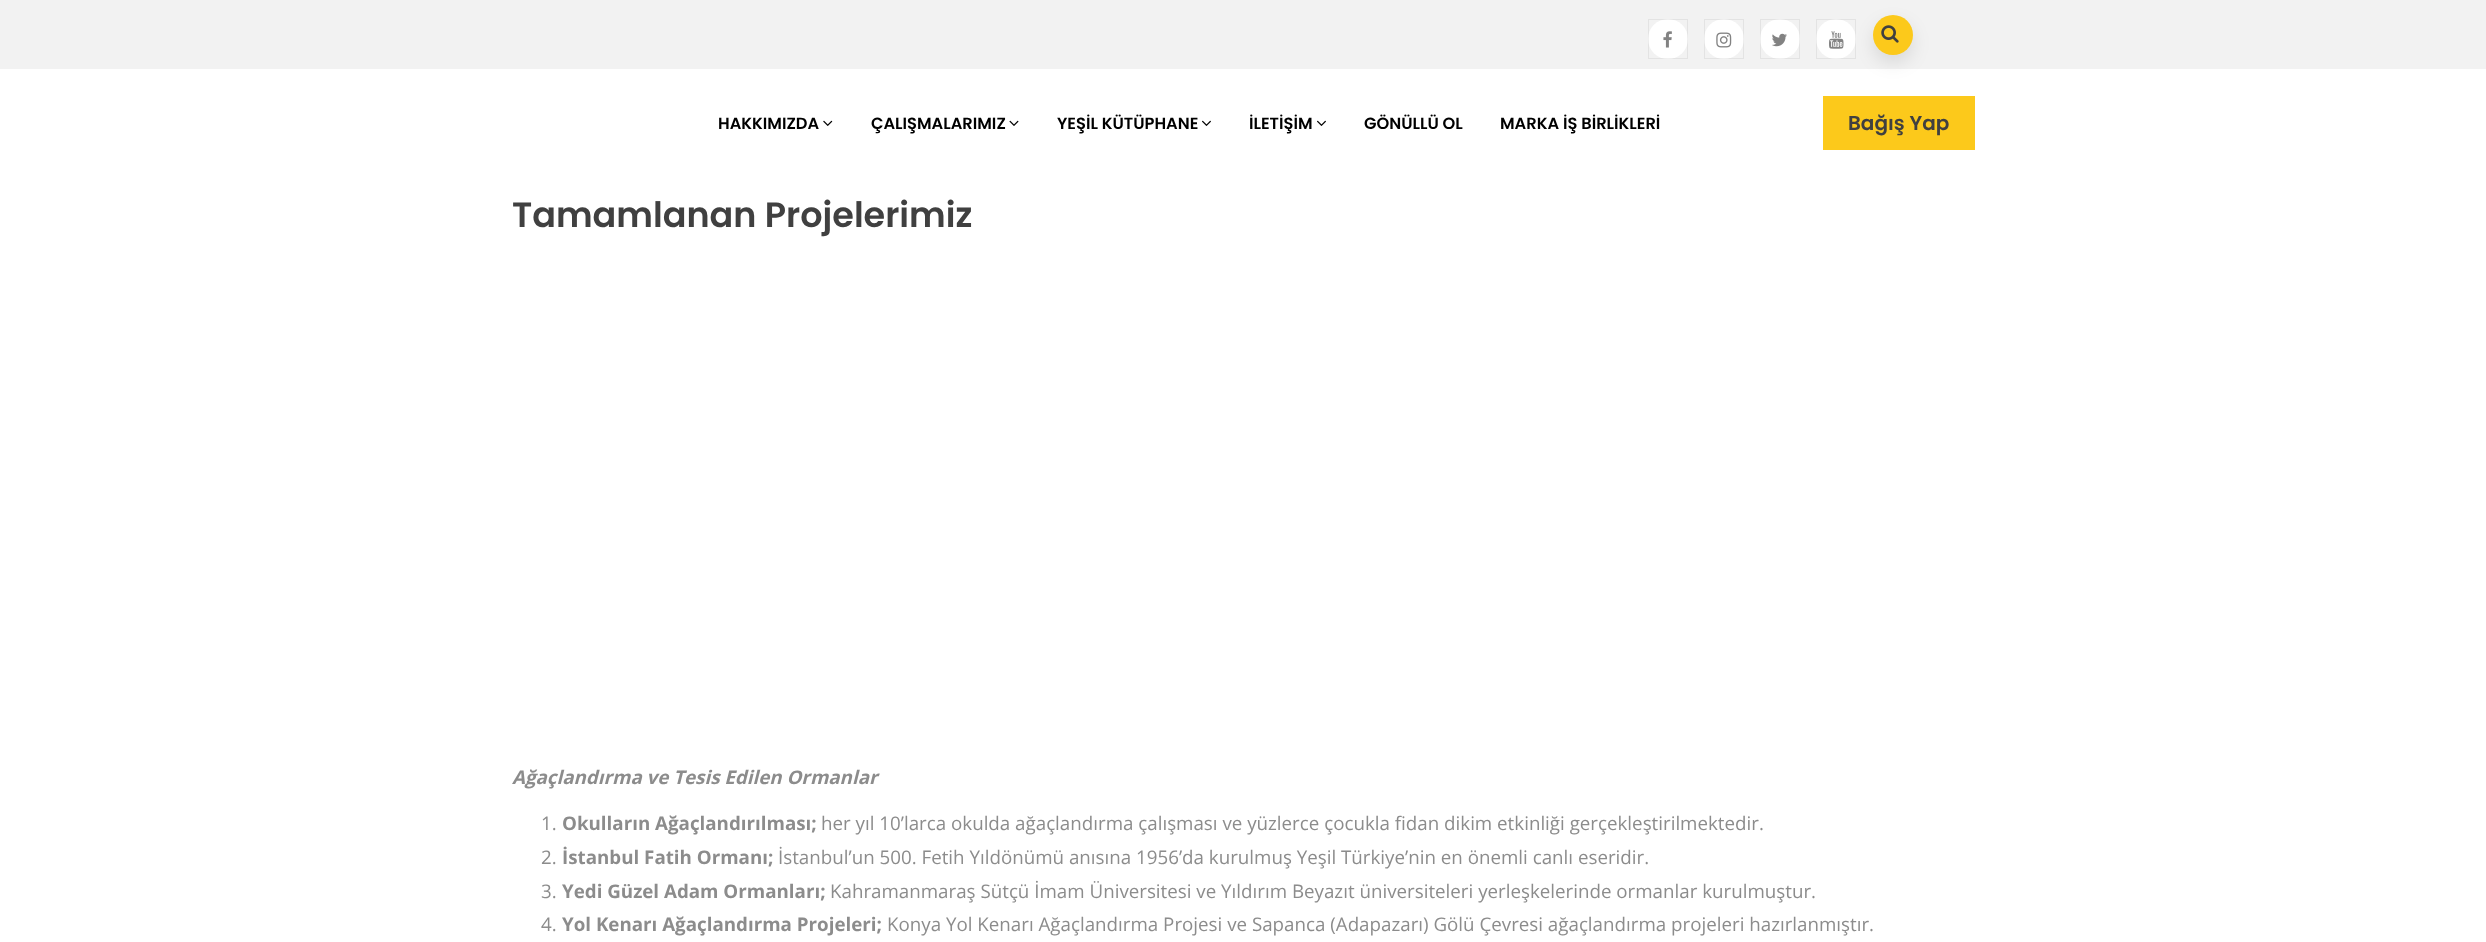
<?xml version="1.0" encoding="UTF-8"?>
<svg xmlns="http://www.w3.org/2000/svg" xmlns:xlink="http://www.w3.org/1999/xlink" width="2486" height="942">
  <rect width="100%" height="100%" fill="#ffffff" />
  <rect width="2486" height="69" fill="#f2f2f2" />
  <circle cx="1668" cy="39" r="20" fill="#ffffff" />
  <rect x="1648.5" y="19.5" width="39" height="39" fill="none" stroke="#000000" stroke-opacity="0.06" />
  <image x="1663" y="31" width="9" height="17" xlink:href="image1.png" />
  <circle cx="1724" cy="39" r="20" fill="#ffffff" />
  <rect x="1704.5" y="19.5" width="39" height="39" fill="none" stroke="#000000" stroke-opacity="0.06" />
  <image x="1716" y="32" width="16" height="16" xlink:href="image2.png" />
  <circle cx="1780" cy="39" r="20" fill="#ffffff" />
  <rect x="1760.5" y="19.5" width="39" height="39" fill="none" stroke="#000000" stroke-opacity="0.06" />
  <image x="1772" y="33" width="15" height="14" xlink:href="image3.png" />
  <circle cx="1836" cy="39" r="20" fill="#ffffff" />
  <rect x="1816.5" y="19.5" width="39" height="39" fill="none" stroke="#000000" stroke-opacity="0.06" />
  <image x="1829" y="31" width="15" height="18" xlink:href="image4.png" />
  <rect x="1873" y="23" width="40" height="40" rx="20" fill="#000000" fill-opacity="0.1" filter="blur(9px)" />
  <circle cx="1893" cy="35" r="20" fill="#fcc91b" />
  <image x="1881" y="25" width="18" height="18" xlink:href="image5.png" />
  <image x="823" y="120" width="10" height="6" xlink:href="image6.png" />
  <image x="1009" y="120" width="10" height="6" xlink:href="image7.png" />
  <image x="1202" y="120" width="9" height="6" xlink:href="image8.png" />
  <image x="1317" y="120" width="9" height="6" xlink:href="image8.png" />
  <rect x="1823" y="96" width="152" height="54" fill="#fcc91b" />
  <text x="718" y="129" style="font-family: Poppins; font-size: 16.25px; font-weight: 600; fill: #000000">HAKKIMIZDA</text>
  <text x="871" y="129" style="font-family: Poppins; font-size: 16.25px; font-weight: 600; fill: #000000">ÇALIŞMALARIMIZ</text>
  <text x="1057" y="129" style="font-family: Poppins; font-size: 16.25px; font-weight: 600; fill: #000000">YEŞİL KÜTÜPHANE</text>
  <text x="1249" y="129" style="font-family: Poppins; font-size: 16.25px; font-weight: 600; fill: #000000">İLETİŞİM</text>
  <text x="1364" y="129" style="font-family: Poppins; font-size: 16.25px; font-weight: 600; fill: #000000">GÖNÜLLÜ OL</text>
  <text x="1500" y="129" style="font-family: Poppins; font-size: 16.25px; font-weight: 600; fill: #000000">MARKA İŞ BİRLİKLERİ</text>
  <text x="1848" y="130" style="font-family: Poppins; font-size: 20px; font-weight: 600; fill: #404040">Bağış Yap</text>
  <text x="512" y="227" style="font-family: Poppins; font-size: 35px; font-weight: 600; fill: #404040">Tamamlanan Projelerimiz</text>
  <text x="512" y="784" style="font-family: Open Sans; font-size: 18.75px; font-weight: bold; font-style: italic; fill: #8c8c8c">Ağaçlandırma ve Tesis Edilen Ormanlar</text>
  <text x="541" y="830" style="font-family: Open Sans; font-size: 18.75px; fill: #8c8c8c">1.</text>
  <text x="562" y="830" style="font-family: Open Sans; font-size: 18.75px; font-weight: bold; fill: #8c8c8c">Okulların Ağaçlandırılması;</text>
  <text x="821" y="830" style="font-family: Open Sans; font-size: 18.75px; fill: #8c8c8c">her yıl 10’larca okulda ağaçlandırma çalışması ve yüzlerce çocukla fidan dikim etkinliği gerçekleştirilmektedir.</text>
  <text x="541" y="864" style="font-family: Open Sans; font-size: 18.75px; fill: #8c8c8c">2.</text>
  <text x="562" y="864" style="font-family: Open Sans; font-size: 18.75px; font-weight: bold; fill: #8c8c8c">İstanbul Fatih Ormanı;</text>
  <text x="778" y="864" style="font-family: Open Sans; font-size: 18.75px; fill: #8c8c8c">İstanbul’un 500. Fetih Yıldönümü anısına 1956’da kurulmuş Yeşil Türkiye’nin en önemli canlı eseridir.</text>
  <text x="541" y="898" style="font-family: Open Sans; font-size: 18.75px; fill: #8c8c8c">3.</text>
  <text x="562" y="898" style="font-family: Open Sans; font-size: 18.75px; font-weight: bold; fill: #8c8c8c">Yedi Güzel Adam Ormanları;</text>
  <text x="830" y="898" style="font-family: Open Sans; font-size: 18.75px; fill: #8c8c8c">Kahramanmaraş Sütçü İmam Üniversitesi ve Yıldırım Beyazıt üniversiteleri yerleşkelerinde ormanlar kurulmuştur.</text>
  <text x="541" y="931" style="font-family: Open Sans; font-size: 18.75px; fill: #8c8c8c">4.</text>
  <text x="562" y="931" style="font-family: Open Sans; font-size: 18.75px; font-weight: bold; fill: #8c8c8c">Yol Kenarı Ağaçlandırma Projeleri;</text>
  <text x="887" y="931" style="font-family: Open Sans; font-size: 18.75px; fill: #8c8c8c">Konya Yol Kenarı Ağaçlandırma Projesi ve Sapanca (Adapazarı) Gölü Çevresi ağaçlandırma projeleri hazırlanmıştır.</text>
</svg>
